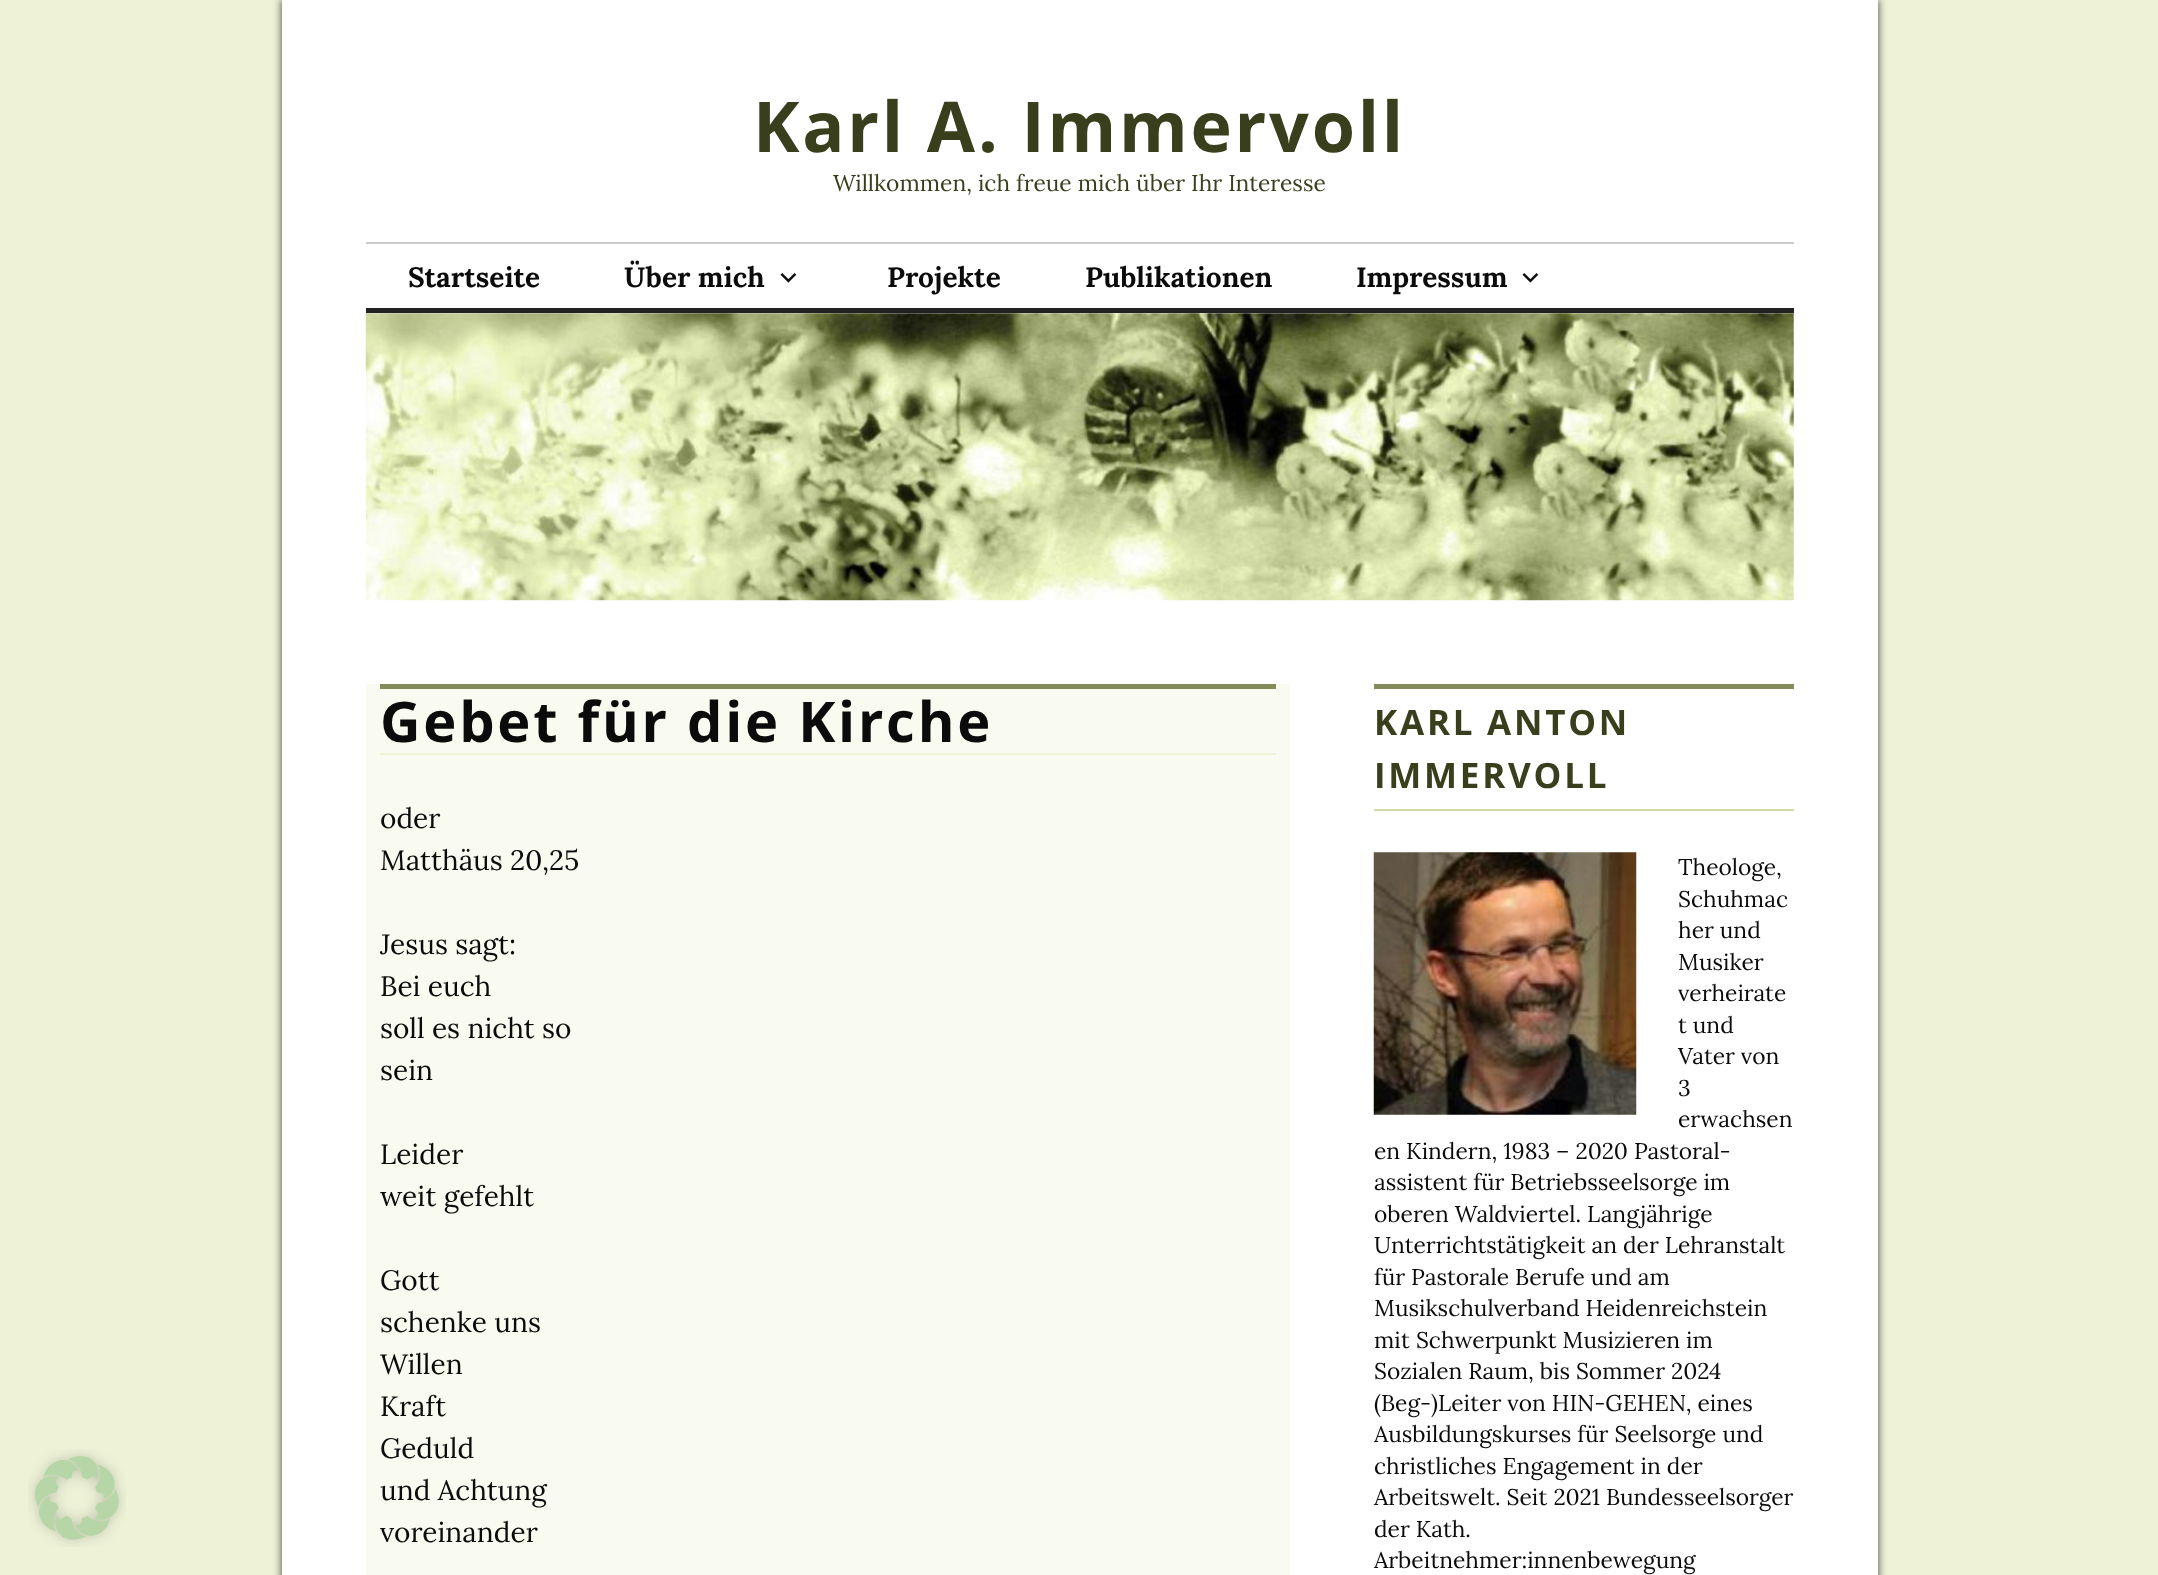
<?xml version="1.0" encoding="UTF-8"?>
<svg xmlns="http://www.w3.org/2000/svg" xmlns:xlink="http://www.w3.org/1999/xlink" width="2158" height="1575">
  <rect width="100%" height="100%" fill="#eef3d8" />
  <image x="28" y="1449" width="98" height="98" xlink:href="image1.png" />
  <rect x="282" width="1596" height="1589" fill="#000000" fill-opacity="0.75" filter="blur(4.5px)" />
  <rect x="282" width="1596" height="1575" fill="#ffffff" />
  <rect x="366" y="242" width="1428" height="2" fill="#cccccc" />
  <rect x="366" y="308" width="1428" height="5" fill="#222222" />
  <image x="780" y="273" width="17" height="10" xlink:href="image2.png" />
  <image x="1522" y="273" width="17" height="10" xlink:href="image2.png" />
  <image x="365" y="313" width="1429" height="288" xlink:href="image3.png" />
  <rect x="366" y="684" width="924" height="891" fill="#f9fbf0" />
  <rect x="380" y="684" width="896" height="5" fill="#838b5b" />
  <rect x="380" y="753" width="896" height="2" fill="#eef3d8" />
  <rect x="1374" y="684" width="420" height="5" fill="#838b5b" />
  <rect x="1374" y="809" width="420" height="2" fill="#d1daa5" />
  <image x="1373" y="852" width="264" height="263" xlink:href="image4.png" />
  <text x="753" y="152" style="font-family: Open Sans; font-size: 70px; font-weight: bold; letter-spacing: 2.75px; fill: #393f1d">Karl A. Immervoll</text>
  <text x="833" y="191" style="font-family: Lora; font-size: 22.75px; fill: #393f1d">Willkommen, ich freue mich über Ihr Interesse</text>
  <text x="408" y="287" style="font-family: Lora; font-size: 28px; font-weight: bold; fill: #0a0b0a">Startseite</text>
  <text x="624" y="287" style="font-family: Lora; font-size: 28px; font-weight: bold; fill: #0a0b0a">Über mich</text>
  <text x="887" y="287" style="font-family: Lora; font-size: 28px; font-weight: bold; fill: #0a0b0a">Projekte</text>
  <text x="1085" y="287" style="font-family: Lora; font-size: 28px; font-weight: bold; fill: #0a0b0a">Publikationen</text>
  <text x="1356" y="287" style="font-family: Lora; font-size: 28px; font-weight: bold; fill: #0a0b0a">Impressum</text>
  <text x="380" y="742" style="font-family: Open Sans; font-size: 56px; font-weight: bold; letter-spacing: 2.75px; fill: #0a0b0a">Gebet für die Kirche</text>
  <text x="380" y="828" style="font-family: Lora; font-size: 28px; fill: #0a0b0a">oder</text>
  <text x="380" y="870" style="font-family: Lora; font-size: 28px; fill: #0a0b0a">Matthäus 20,25</text>
  <text x="380" y="954" style="font-family: Lora; font-size: 28px; fill: #0a0b0a">Jesus sagt:</text>
  <text x="380" y="996" style="font-family: Lora; font-size: 28px; fill: #0a0b0a">Bei euch</text>
  <text x="380" y="1038" style="font-family: Lora; font-size: 28px; fill: #0a0b0a">soll es nicht so</text>
  <text x="380" y="1080" style="font-family: Lora; font-size: 28px; fill: #0a0b0a">sein</text>
  <text x="380" y="1164" style="font-family: Lora; font-size: 28px; fill: #0a0b0a">Leider</text>
  <text x="380" y="1206" style="font-family: Lora; font-size: 28px; fill: #0a0b0a">weit gefehlt</text>
  <text x="380" y="1290" style="font-family: Lora; font-size: 28px; fill: #0a0b0a">Gott</text>
  <text x="380" y="1332" style="font-family: Lora; font-size: 28px; fill: #0a0b0a">schenke uns</text>
  <text x="380" y="1374" style="font-family: Lora; font-size: 28px; fill: #0a0b0a">Willen</text>
  <text x="380" y="1416" style="font-family: Lora; font-size: 28px; fill: #0a0b0a">Kraft</text>
  <text x="380" y="1458" style="font-family: Lora; font-size: 28px; fill: #0a0b0a">Geduld</text>
  <text x="380" y="1500" style="font-family: Lora; font-size: 28px; fill: #0a0b0a">und Achtung</text>
  <text x="380" y="1542" style="font-family: Lora; font-size: 28px; fill: #0a0b0a">voreinander</text>
  <text x="1374" y="735" style="font-family: Open Sans; font-size: 35px; font-weight: bold; letter-spacing: 2.75px; fill: #393f1d">KARL ANTON</text>
  <text x="1374" y="788" style="font-family: Open Sans; font-size: 35px; font-weight: bold; letter-spacing: 2.75px; fill: #393f1d">IMMERVOLL</text>
  <text x="1678" y="875" style="font-family: Lora; font-size: 22.75px; fill: #0a0b0a">Theologe,</text>
  <text x="1678" y="907" style="font-family: Lora; font-size: 22.75px; fill: #0a0b0a">Schuhmac</text>
  <text x="1678" y="938" style="font-family: Lora; font-size: 22.75px; fill: #0a0b0a">her und</text>
  <text x="1678" y="970" style="font-family: Lora; font-size: 22.75px; fill: #0a0b0a">Musiker</text>
  <text x="1678" y="1001" style="font-family: Lora; font-size: 22.75px; fill: #0a0b0a">verheirate</text>
  <text x="1678" y="1033" style="font-family: Lora; font-size: 22.75px; fill: #0a0b0a">t und</text>
  <text x="1678" y="1064" style="font-family: Lora; font-size: 22.75px; fill: #0a0b0a">Vater von</text>
  <text x="1678" y="1096" style="font-family: Lora; font-size: 22.75px; fill: #0a0b0a">3</text>
  <text x="1678" y="1127" style="font-family: Lora; font-size: 22.75px; fill: #0a0b0a">erwachsen</text>
  <text x="1374" y="1159" style="font-family: Lora; font-size: 22.75px; fill: #0a0b0a">en Kindern, 1983 – 2020 Pastoral-</text>
  <text x="1374" y="1190" style="font-family: Lora; font-size: 22.75px; fill: #0a0b0a">assistent für Betriebsseelsorge im</text>
  <text x="1374" y="1222" style="font-family: Lora; font-size: 22.75px; fill: #0a0b0a">oberen Waldviertel. Langjährige</text>
  <text x="1374" y="1253" style="font-family: Lora; font-size: 22.75px; fill: #0a0b0a">Unterrichtstätigkeit an der Lehranstalt</text>
  <text x="1374" y="1285" style="font-family: Lora; font-size: 22.75px; fill: #0a0b0a">für Pastorale Berufe und am</text>
  <text x="1374" y="1316" style="font-family: Lora; font-size: 22.75px; fill: #0a0b0a">Musikschulverband Heidenreichstein</text>
  <text x="1374" y="1348" style="font-family: Lora; font-size: 22.75px; fill: #0a0b0a">mit Schwerpunkt Musizieren im</text>
  <text x="1374" y="1379" style="font-family: Lora; font-size: 22.75px; fill: #0a0b0a">Sozialen Raum, bis Sommer 2024</text>
  <text x="1374" y="1411" style="font-family: Lora; font-size: 22.75px; fill: #0a0b0a">(Beg-)Leiter von HIN-GEHEN, eines</text>
  <text x="1374" y="1442" style="font-family: Lora; font-size: 22.75px; fill: #0a0b0a">Ausbildungskurses für Seelsorge und</text>
  <text x="1374" y="1474" style="font-family: Lora; font-size: 22.75px; fill: #0a0b0a">christliches Engagement in der</text>
  <text x="1374" y="1505" style="font-family: Lora; font-size: 22.75px; fill: #0a0b0a">Arbeitswelt. Seit 2021 Bundesseelsorger</text>
  <text x="1374" y="1537" style="font-family: Lora; font-size: 22.75px; fill: #0a0b0a">der Kath.</text>
  <text x="1374" y="1568" style="font-family: Lora; font-size: 22.75px; fill: #0a0b0a">Arbeitnehmer:innenbewegung</text>
</svg>
